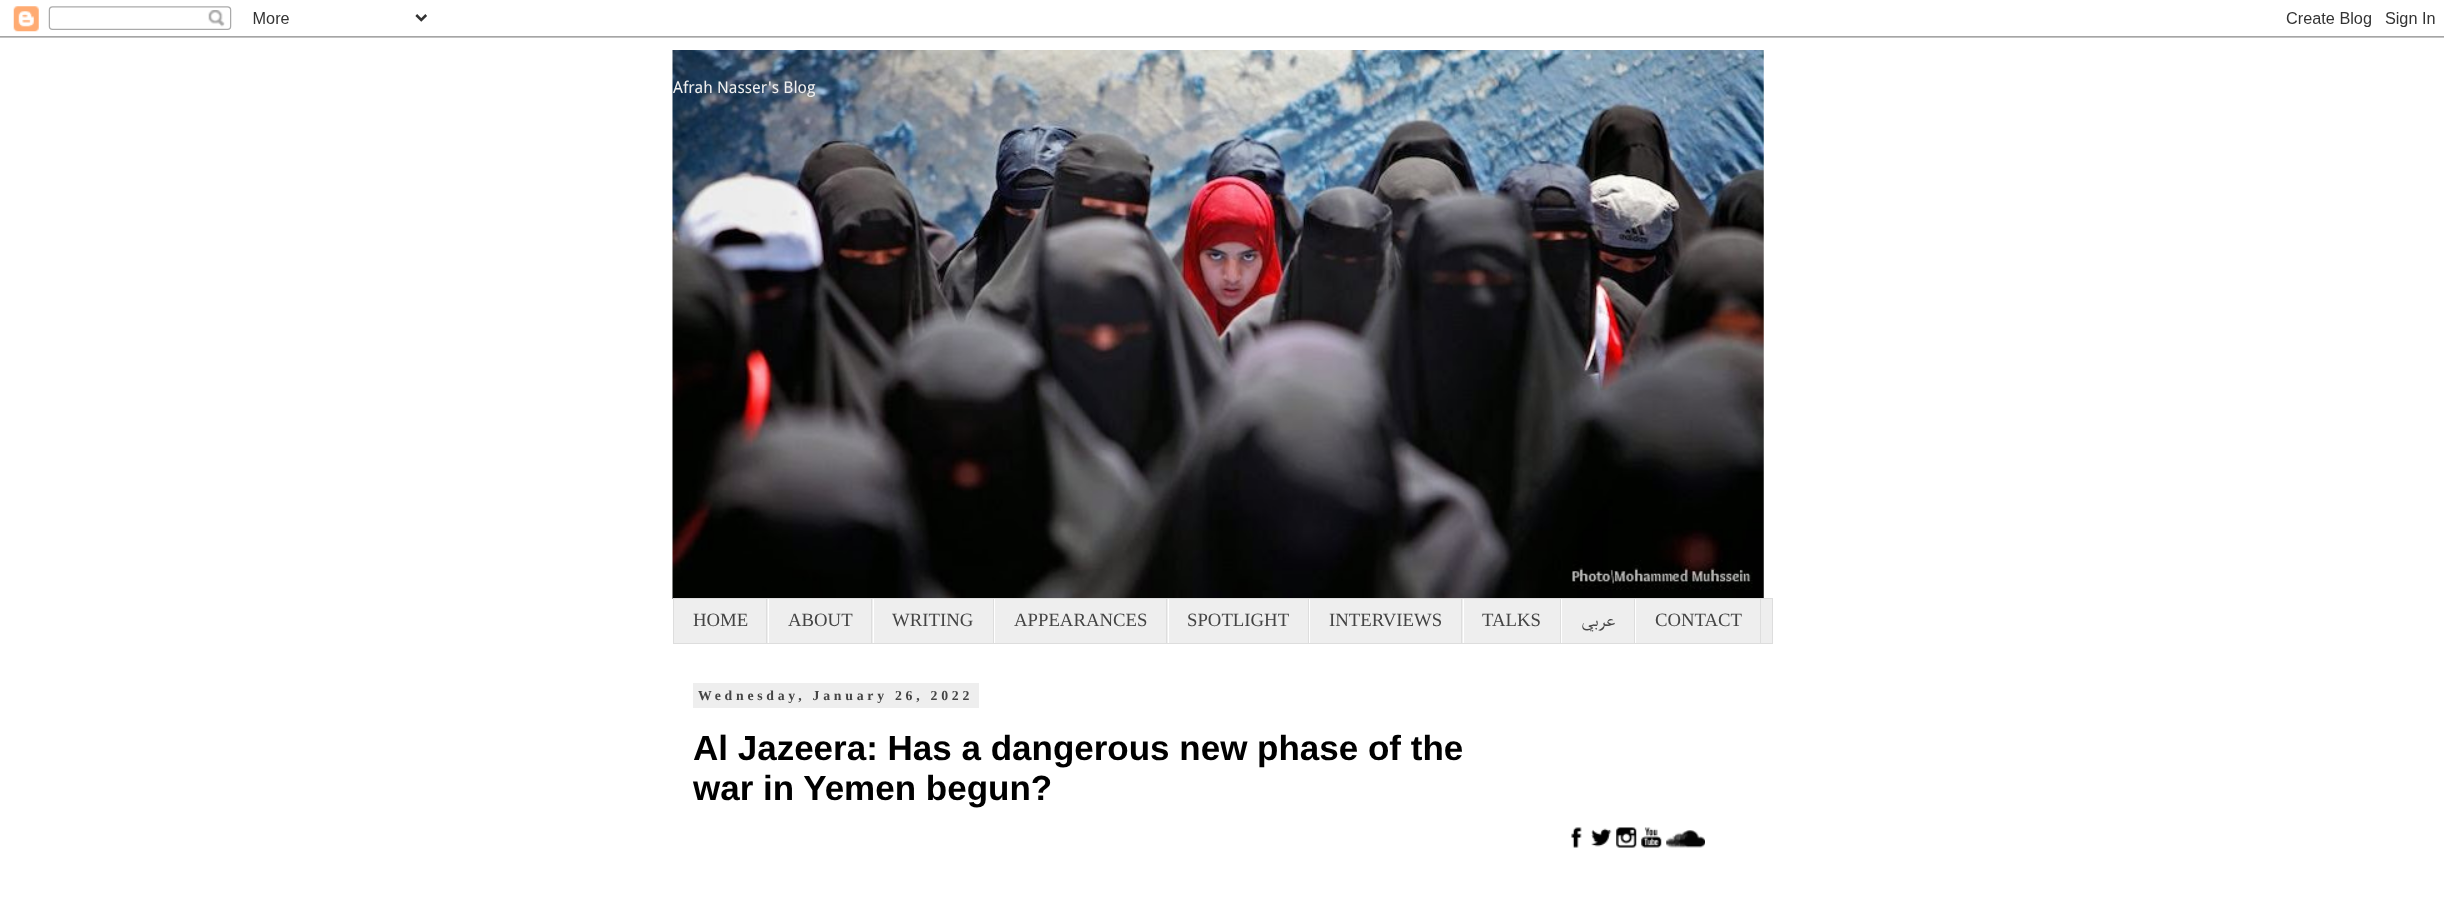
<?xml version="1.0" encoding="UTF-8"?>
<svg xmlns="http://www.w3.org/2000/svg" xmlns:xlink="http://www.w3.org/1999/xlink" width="2444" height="921">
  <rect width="100%" height="100%" fill="#ffffff" />
  <image x="0" y="6" width="2444" height="32" xlink:href="image1.png" />
  <image x="672" y="50" width="1092" height="549" xlink:href="image2.png" />
  <rect x="673.5" y="598.5" width="1099" height="45" fill="#eeeeee" stroke="#dddddd" />
  <rect x="766" y="599" width="1" height="44" fill="#dddddd" />
  <rect x="871" y="599" width="1" height="44" fill="#dddddd" />
  <rect x="768" y="599" width="1" height="44" fill="#ffffff" />
  <rect x="993" y="599" width="1" height="44" fill="#dddddd" />
  <rect x="873" y="599" width="1" height="44" fill="#ffffff" />
  <rect x="1166" y="599" width="1" height="44" fill="#dddddd" />
  <rect x="994" y="599" width="1" height="44" fill="#ffffff" />
  <rect x="1308" y="599" width="1" height="44" fill="#dddddd" />
  <rect x="1168" y="599" width="1" height="44" fill="#ffffff" />
  <rect x="1461" y="599" width="1" height="44" fill="#dddddd" />
  <rect x="1309" y="599" width="1" height="44" fill="#ffffff" />
  <rect x="1560" y="599" width="1" height="44" fill="#dddddd" />
  <rect x="1463" y="599" width="1" height="44" fill="#ffffff" />
  <rect x="1634" y="599" width="1" height="44" fill="#dddddd" />
  <rect x="1561" y="599" width="1" height="44" fill="#ffffff" />
  <rect x="1760" y="599" width="1" height="44" fill="#dddddd" />
  <rect x="1635" y="599" width="1" height="44" fill="#ffffff" />
  <rect x="693" y="683" width="286" height="25" fill="#eeeeee" />
  <image x="1571" y="827" width="11" height="21" xlink:href="image3.png" />
  <image x="1591" y="828" width="21" height="19" xlink:href="image4.png" />
  <image x="1616" y="827" width="21" height="21" xlink:href="image5.png" />
  <image x="1641" y="827" width="21" height="21" xlink:href="image6.png" />
  <image x="1666" y="830" width="39" height="18" xlink:href="image7.png" />
  <text x="673" y="93" style="font-family: Droid Sans; font-size: 16.25px; fill: #f0f0f0">Afrah Nasser's Blog</text>
  <text x="693" y="626" style="font-family: Liberation Serif; font-size: 18.75px; fill: #444444">HOME</text>
  <text x="788" y="626" style="font-family: Liberation Serif; font-size: 18.75px; fill: #444444">ABOUT</text>
  <text x="892" y="626" style="font-family: Liberation Serif; font-size: 18.75px; fill: #444444">WRITING</text>
  <text x="1014" y="626" style="font-family: Liberation Serif; font-size: 18.75px; fill: #444444">APPEARANCES</text>
  <text x="1187" y="626" style="font-family: Liberation Serif; font-size: 18.75px; fill: #444444">SPOTLIGHT</text>
  <text x="1329" y="626" style="font-family: Liberation Serif; font-size: 18.75px; fill: #444444">INTERVIEWS</text>
  <text x="1482" y="626" style="font-family: Liberation Serif; font-size: 18.75px; fill: #444444">TALKS</text>
  <text x="1615" y="626" style="font-family: FreeSerif; font-size: 18.75px; direction: rtl; fill: #444444">عربي</text>
  <text x="1655" y="626" style="font-family: Liberation Serif; font-size: 18.75px; fill: #444444">CONTACT</text>
  <text x="698" y="700" style="font-family: Liberation Serif; font-size: 13.75px; font-weight: bold; letter-spacing: 3.75px; fill: #444444">Wednesday, January 26, 2022</text>
  <text x="693" y="760" style="font-family: Liberation Sans; font-size: 35px; font-weight: bold; fill: #000000">Al Jazeera: Has a dangerous new phase of the</text>
  <text x="693" y="800" style="font-family: Liberation Sans; font-size: 35px; font-weight: bold; fill: #000000">war in Yemen begun?</text>
</svg>
